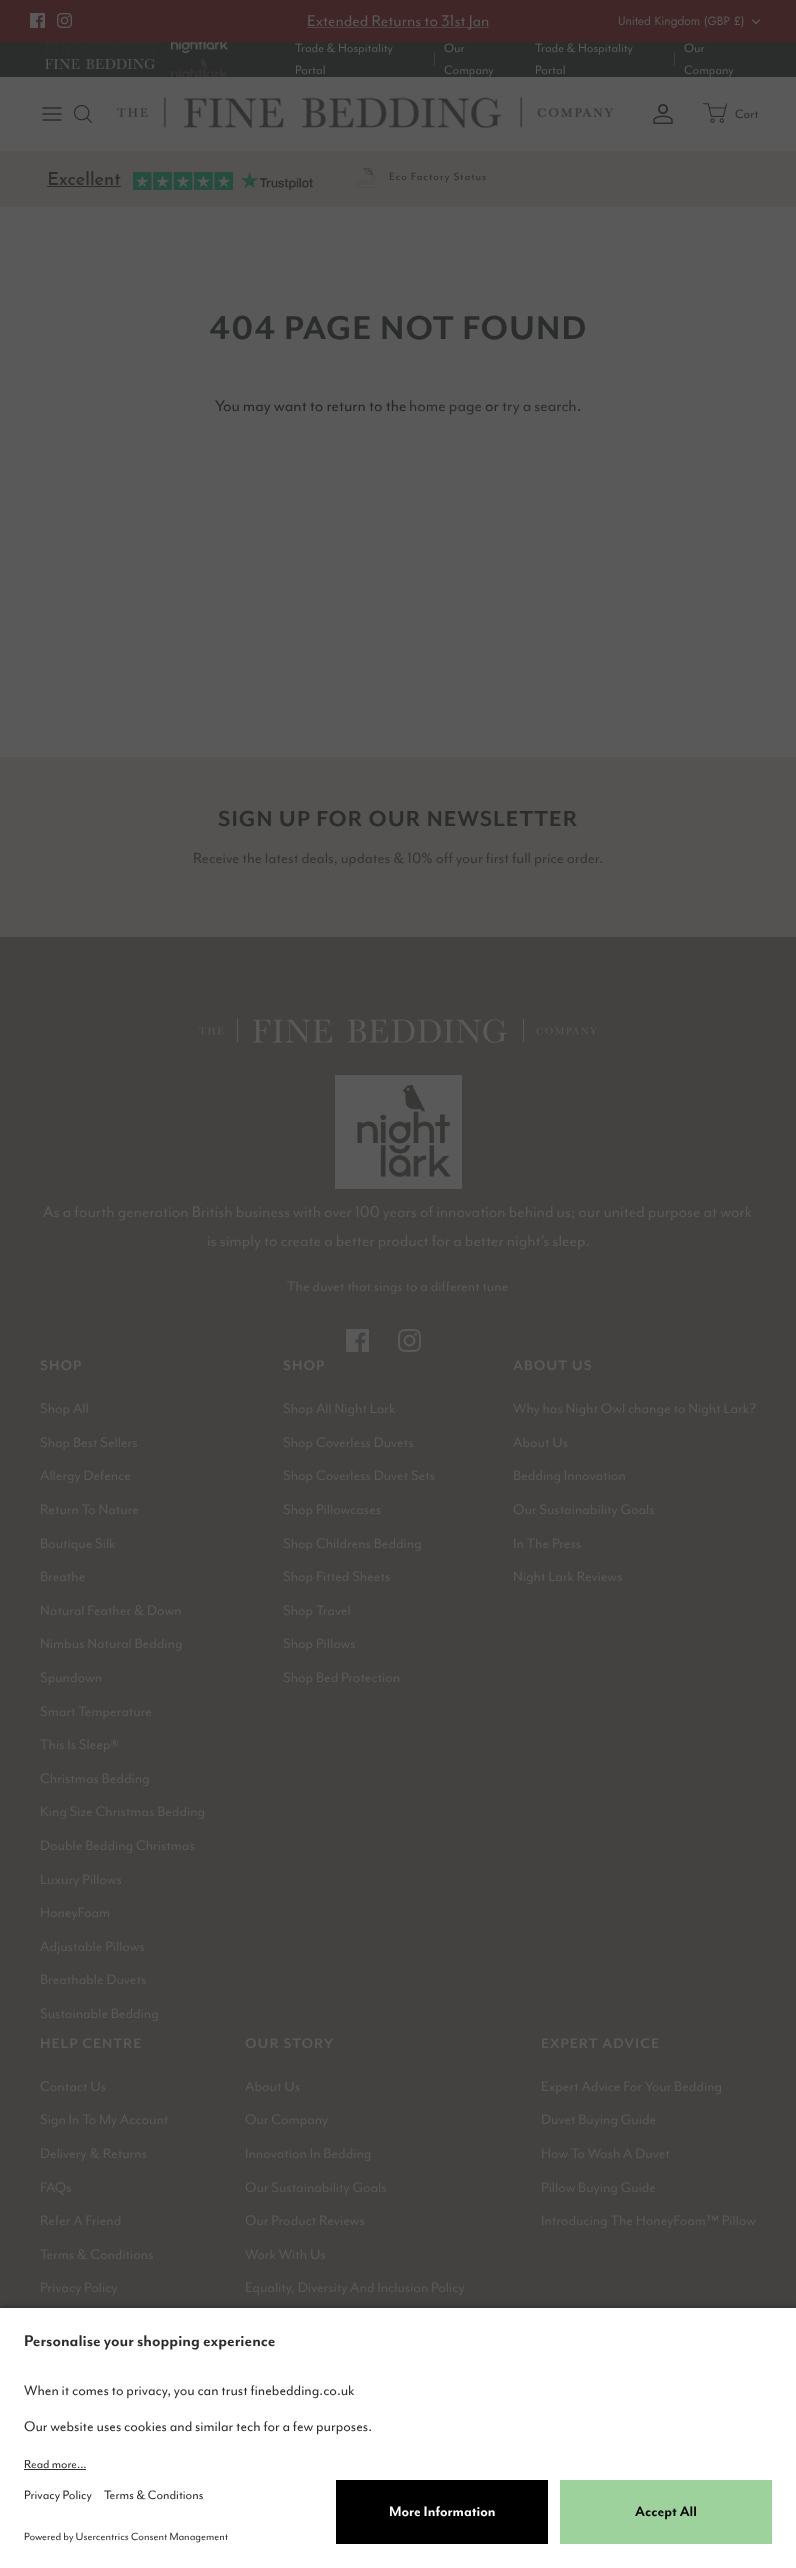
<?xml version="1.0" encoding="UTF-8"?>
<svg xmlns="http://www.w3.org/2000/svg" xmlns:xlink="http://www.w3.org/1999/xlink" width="796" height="2568">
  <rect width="100%" height="100%" fill="#595959" />
  <rect width="796" height="42" fill="#412627" />
  <image x="30" y="13" width="15" height="15" xlink:href="image1.png" />
  <image x="57" y="13" width="15" height="15" xlink:href="image2.png" />
  <rect x="307" y="27" width="182" height="1" fill="#504545" />
  <path d="M 752.5 20 l 3.5 3.5 l 3.5 -3.5" fill="none" stroke="#595959" stroke-width="1.2" stroke-linecap="round" stroke-linejoin="round" />
  <rect y="42" width="796" height="35" fill="#2b2d2d" />
  <image x="45" y="43" width="109" height="10" xlink:href="image3.png" />
  <image x="45" y="59" width="110" height="10" xlink:href="image4.png" />
  <image x="171" y="42" width="57" height="11" xlink:href="image5.png" />
  <image x="171" y="59" width="57" height="18" xlink:href="image6.png" />
  <rect x="434" y="52" width="1" height="14" fill="#3d3f3f" />
  <rect x="674" y="52" width="1" height="14" fill="#3d3f3f" />
  <rect y="151" width="796" height="1" fill="#545454" />
  <image x="42" y="107" width="20" height="14" xlink:href="image7.png" />
  <image x="74" y="105" width="18" height="18" xlink:href="image8.png" />
  <image x="116" y="96" width="498" height="33" xlink:href="image9.png" />
  <image x="653" y="104" width="20" height="20" xlink:href="image10.png" />
  <image x="703" y="103" width="24" height="20" xlink:href="image11.png" />
  <rect y="152" width="796" height="55" fill="#545352" />
  <image x="47" y="171" width="266" height="19" xlink:href="image12.png" />
  <image x="357" y="168" width="18" height="20" xlink:href="image13.png" />
  <rect y="937" width="796" height="1371" fill="#444241" />
  <rect y="757" width="796" height="180" fill="#545352" />
  <image x="199" y="1019" width="398" height="24" xlink:href="image14.png" />
  <image x="335" y="1075" width="127" height="114" xlink:href="image15.png" />
  <image x="346" y="1329" width="23" height="23" xlink:href="image16.png" />
  <image x="398" y="1329" width="23" height="23" xlink:href="image17.png" />
  <rect y="2310" width="796" height="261" fill="#000000" fill-opacity="0.8" filter="blur(3.5px)" />
  <rect y="2308" width="796" height="260" fill="#ffffff" />
  <rect x="24" y="2469" width="62" height="1" fill="#303030" />
  <rect x="336" y="2480" width="212" height="64" fill="#000000" />
  <rect x="560" y="2480" width="212" height="64" fill="#9dd29c" />
  <text x="307" y="26" style="font-family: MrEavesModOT; font-size: 18px; fill: #595959">Extended Returns to 31st Jan</text>
  <text x="618" y="25" style="font-family: Jost; font-size: 12px; fill: #595959">United Kingdom (GBP £)</text>
  <text x="295" y="52" style="font-family: MrEavesModOT; font-size: 14px; fill: #595959">Trade &amp; Hospitality</text>
  <text x="295" y="74" style="font-family: MrEavesModOT; font-size: 14px; fill: #595959">Portal</text>
  <text x="444" y="52" style="font-family: MrEavesModOT; font-size: 14px; fill: #595959">Our</text>
  <text x="444" y="74" style="font-family: MrEavesModOT; font-size: 14px; fill: #595959">Company</text>
  <text x="535" y="52" style="font-family: MrEavesModOT; font-size: 14px; fill: #595959">Trade &amp; Hospitality</text>
  <text x="535" y="74" style="font-family: MrEavesModOT; font-size: 14px; fill: #595959">Portal</text>
  <text x="684" y="52" style="font-family: MrEavesModOT; font-size: 14px; fill: #595959">Our</text>
  <text x="684" y="74" style="font-family: MrEavesModOT; font-size: 14px; fill: #595959">Company</text>
  <text x="735" y="118" style="font-family: MrEavesModOT; font-size: 14px; fill: #2b2d2d">Cart</text>
  <text x="389" y="180" style="font-family: MrEavesModOT; font-size: 12px; letter-spacing: 1px; fill: #2b2d2d">Eco Factory Status</text>
  <text x="209" y="339" style="font-family: MrEavesModOT; font-size: 38px; font-weight: bold; letter-spacing: 1px; fill: #2b2d2d">404 PAGE NOT FOUND</text>
  <text x="215" y="411" style="font-family: MrEavesModOT; font-size: 18px; fill: #262626">You may want to return to the</text>
  <text x="409" y="411" style="font-family: MrEavesModOT; font-size: 18px; fill: #2b2d2d">home page</text>
  <text x="485" y="411" style="font-family: MrEavesModOT; font-size: 18px; fill: #262626">or</text>
  <text x="502" y="411" style="font-family: MrEavesModOT; font-size: 18px; fill: #2b2d2d">try a search</text>
  <text x="577" y="411" style="font-family: MrEavesModOT; font-size: 18px; fill: #262626">.</text>
  <text x="218" y="826" style="font-family: MrEavesModOT; font-size: 25px; font-weight: bold; letter-spacing: 1px; fill: #2b2d2d">SIGN UP FOR OUR NEWSLETTER</text>
  <text x="193" y="863" style="font-family: MrEavesModOT; font-size: 17px; fill: #333534">Receive the latest deals, updates &amp; 10% off your first full price order.</text>
  <text x="43" y="1217" style="font-family: MrEavesModOT; font-size: 18px; fill: #595959">As a fourth generation British business with over 100 years of innovation behind us; our united purpose at work</text>
  <text x="207" y="1246" style="font-family: MrEavesModOT; font-size: 18px; fill: #595959">is simply to create a better product for a better night’s sleep.</text>
  <text x="287" y="1291" style="font-family: MrEavesModOT; font-size: 16px; fill: #595959">The duvet that sings to a different tune</text>
  <text x="40" y="1370" style="font-family: MrEavesModOT; font-size: 16px; font-weight: bold; letter-spacing: 1px; fill: #595959">SHOP</text>
  <text x="40" y="1413" style="font-family: MrEavesModOT; font-size: 16px; fill: #595959">Shop All</text>
  <text x="40" y="1447" style="font-family: MrEavesModOT; font-size: 16px; fill: #595959">Shop Best Sellers</text>
  <text x="40" y="1480" style="font-family: MrEavesModOT; font-size: 16px; fill: #595959">Allergy Defence</text>
  <text x="40" y="1514" style="font-family: MrEavesModOT; font-size: 16px; fill: #595959">Return To Nature</text>
  <text x="40" y="1548" style="font-family: MrEavesModOT; font-size: 16px; fill: #595959">Boutique Silk</text>
  <text x="40" y="1581" style="font-family: MrEavesModOT; font-size: 16px; fill: #595959">Breathe</text>
  <text x="40" y="1615" style="font-family: MrEavesModOT; font-size: 16px; fill: #595959">Natural Feather &amp; Down</text>
  <text x="40" y="1648" style="font-family: MrEavesModOT; font-size: 16px; fill: #595959">Nimbus Natural Bedding</text>
  <text x="40" y="1682" style="font-family: MrEavesModOT; font-size: 16px; fill: #595959">Spundown</text>
  <text x="40" y="1716" style="font-family: MrEavesModOT; font-size: 16px; fill: #595959">Smart Temperature</text>
  <text x="40" y="1749" style="font-family: MrEavesModOT; font-size: 16px; fill: #595959">This Is Sleep®</text>
  <text x="40" y="1783" style="font-family: MrEavesModOT; font-size: 16px; fill: #595959">Christmas Bedding</text>
  <text x="40" y="1816" style="font-family: MrEavesModOT; font-size: 16px; fill: #595959">King Size Christmas Bedding</text>
  <text x="40" y="1850" style="font-family: MrEavesModOT; font-size: 16px; fill: #595959">Double Bedding Christmas</text>
  <text x="40" y="1884" style="font-family: MrEavesModOT; font-size: 16px; fill: #595959">Luxury Pillows</text>
  <text x="40" y="1917" style="font-family: MrEavesModOT; font-size: 16px; fill: #595959">HoneyFoam</text>
  <text x="40" y="1951" style="font-family: MrEavesModOT; font-size: 16px; fill: #595959">Adjustable Pillows</text>
  <text x="40" y="1984" style="font-family: MrEavesModOT; font-size: 16px; fill: #595959">Breathable Duvets</text>
  <text x="40" y="2018" style="font-family: MrEavesModOT; font-size: 16px; fill: #595959">Sustainable Bedding</text>
  <text x="283" y="1370" style="font-family: MrEavesModOT; font-size: 16px; font-weight: bold; letter-spacing: 1px; fill: #595959">SHOP</text>
  <text x="283" y="1413" style="font-family: MrEavesModOT; font-size: 16px; fill: #595959">Shop All Night Lark</text>
  <text x="283" y="1447" style="font-family: MrEavesModOT; font-size: 16px; fill: #595959">Shop Coverless Duvets</text>
  <text x="283" y="1480" style="font-family: MrEavesModOT; font-size: 16px; fill: #595959">Shop Coverless Duvet Sets</text>
  <text x="283" y="1514" style="font-family: MrEavesModOT; font-size: 16px; fill: #595959">Shop Pillowcases</text>
  <text x="283" y="1548" style="font-family: MrEavesModOT; font-size: 16px; fill: #595959">Shop Childrens Bedding</text>
  <text x="283" y="1581" style="font-family: MrEavesModOT; font-size: 16px; fill: #595959">Shop Fitted Sheets</text>
  <text x="283" y="1615" style="font-family: MrEavesModOT; font-size: 16px; fill: #595959">Shop Travel</text>
  <text x="283" y="1648" style="font-family: MrEavesModOT; font-size: 16px; fill: #595959">Shop Pillows</text>
  <text x="283" y="1682" style="font-family: MrEavesModOT; font-size: 16px; fill: #595959">Shop Bed Protection</text>
  <text x="513" y="1370" style="font-family: MrEavesModOT; font-size: 16px; font-weight: bold; letter-spacing: 1px; fill: #595959">ABOUT US</text>
  <text x="513" y="1413" style="font-family: MrEavesModOT; font-size: 16px; fill: #595959">Why has Night Owl change to Night Lark?</text>
  <text x="513" y="1447" style="font-family: MrEavesModOT; font-size: 16px; fill: #595959">About Us</text>
  <text x="513" y="1480" style="font-family: MrEavesModOT; font-size: 16px; fill: #595959">Bedding Innovation</text>
  <text x="513" y="1514" style="font-family: MrEavesModOT; font-size: 16px; fill: #595959">Our Sustainability Goals</text>
  <text x="513" y="1548" style="font-family: MrEavesModOT; font-size: 16px; fill: #595959">In The Press</text>
  <text x="513" y="1581" style="font-family: MrEavesModOT; font-size: 16px; fill: #595959">Night Lark Reviews</text>
  <text x="40" y="2048" style="font-family: MrEavesModOT; font-size: 16px; font-weight: bold; letter-spacing: 1px; fill: #595959">HELP CENTRE</text>
  <text x="40" y="2091" style="font-family: MrEavesModOT; font-size: 16px; fill: #595959">Contact Us</text>
  <text x="40" y="2124" style="font-family: MrEavesModOT; font-size: 16px; fill: #595959">Sign In To My Account</text>
  <text x="40" y="2158" style="font-family: MrEavesModOT; font-size: 16px; fill: #595959">Delivery &amp; Returns</text>
  <text x="40" y="2192" style="font-family: MrEavesModOT; font-size: 16px; fill: #595959">FAQs</text>
  <text x="40" y="2225" style="font-family: MrEavesModOT; font-size: 16px; fill: #595959">Refer A Friend</text>
  <text x="40" y="2259" style="font-family: MrEavesModOT; font-size: 16px; fill: #595959">Terms &amp; Conditions</text>
  <text x="40" y="2292" style="font-family: MrEavesModOT; font-size: 16px; fill: #595959">Privacy Policy</text>
  <text x="245" y="2048" style="font-family: MrEavesModOT; font-size: 16px; font-weight: bold; letter-spacing: 1px; fill: #595959">OUR STORY</text>
  <text x="245" y="2091" style="font-family: MrEavesModOT; font-size: 16px; fill: #595959">About Us</text>
  <text x="245" y="2124" style="font-family: MrEavesModOT; font-size: 16px; fill: #595959">Our Company</text>
  <text x="245" y="2158" style="font-family: MrEavesModOT; font-size: 16px; fill: #595959">Innovation In Bedding</text>
  <text x="245" y="2192" style="font-family: MrEavesModOT; font-size: 16px; fill: #595959">Our Sustainability Goals</text>
  <text x="245" y="2225" style="font-family: MrEavesModOT; font-size: 16px; fill: #595959">Our Product Reviews</text>
  <text x="245" y="2259" style="font-family: MrEavesModOT; font-size: 16px; fill: #595959">Work With Us</text>
  <text x="245" y="2292" style="font-family: MrEavesModOT; font-size: 16px; fill: #595959">Equality, Diversity And Inclusion Policy</text>
  <text x="541" y="2048" style="font-family: MrEavesModOT; font-size: 16px; font-weight: bold; letter-spacing: 1px; fill: #595959">EXPERT ADVICE</text>
  <text x="541" y="2091" style="font-family: MrEavesModOT; font-size: 16px; fill: #595959">Expert Advice For Your Bedding</text>
  <text x="541" y="2124" style="font-family: MrEavesModOT; font-size: 16px; fill: #595959">Duvet Buying Guide</text>
  <text x="541" y="2158" style="font-family: MrEavesModOT; font-size: 16px; fill: #595959">How To Wash A Duvet</text>
  <text x="541" y="2192" style="font-family: MrEavesModOT; font-size: 16px; fill: #595959">Pillow Buying Guide</text>
  <text x="541" y="2225" style="font-family: MrEavesModOT; font-size: 16px; fill: #595959">Introducing The HoneyFoam™ Pillow</text>
  <text x="24" y="2346" style="font-family: MrEavesModOT; font-size: 18px; font-weight: bold; fill: #2b2d2d">Personalise your shopping experience</text>
  <text x="24" y="2395" style="font-family: MrEavesModOT; font-size: 16px; fill: #2b2d2d">When it comes to privacy, you can trust finebedding.co.uk</text>
  <text x="24" y="2431" style="font-family: MrEavesModOT; font-size: 16px; fill: #2b2d2d">Our website uses cookies and similar tech for a few purposes.</text>
  <text x="24" y="2468" style="font-family: MrEavesModOT; font-size: 13.5px; fill: #2b2d2d">Read more...</text>
  <text x="24" y="2499" style="font-family: MrEavesModOT; font-size: 14px; fill: #2b2d2d">Privacy Policy</text>
  <text x="104" y="2499" style="font-family: MrEavesModOT; font-size: 14px; fill: #2b2d2d">Terms &amp; Conditions</text>
  <text x="24" y="2540" style="font-family: MrEavesModOT; font-size: 12px; fill: #2b2d2d">Powered by Usercentrics Consent Management</text>
  <text x="389" y="2516" style="font-family: MrEavesModOT; font-size: 16px; font-weight: bold; fill: #ffffff">More Information</text>
  <text x="635" y="2516" style="font-family: MrEavesModOT; font-size: 16px; font-weight: bold; fill: #000000">Accept All</text>
</svg>
